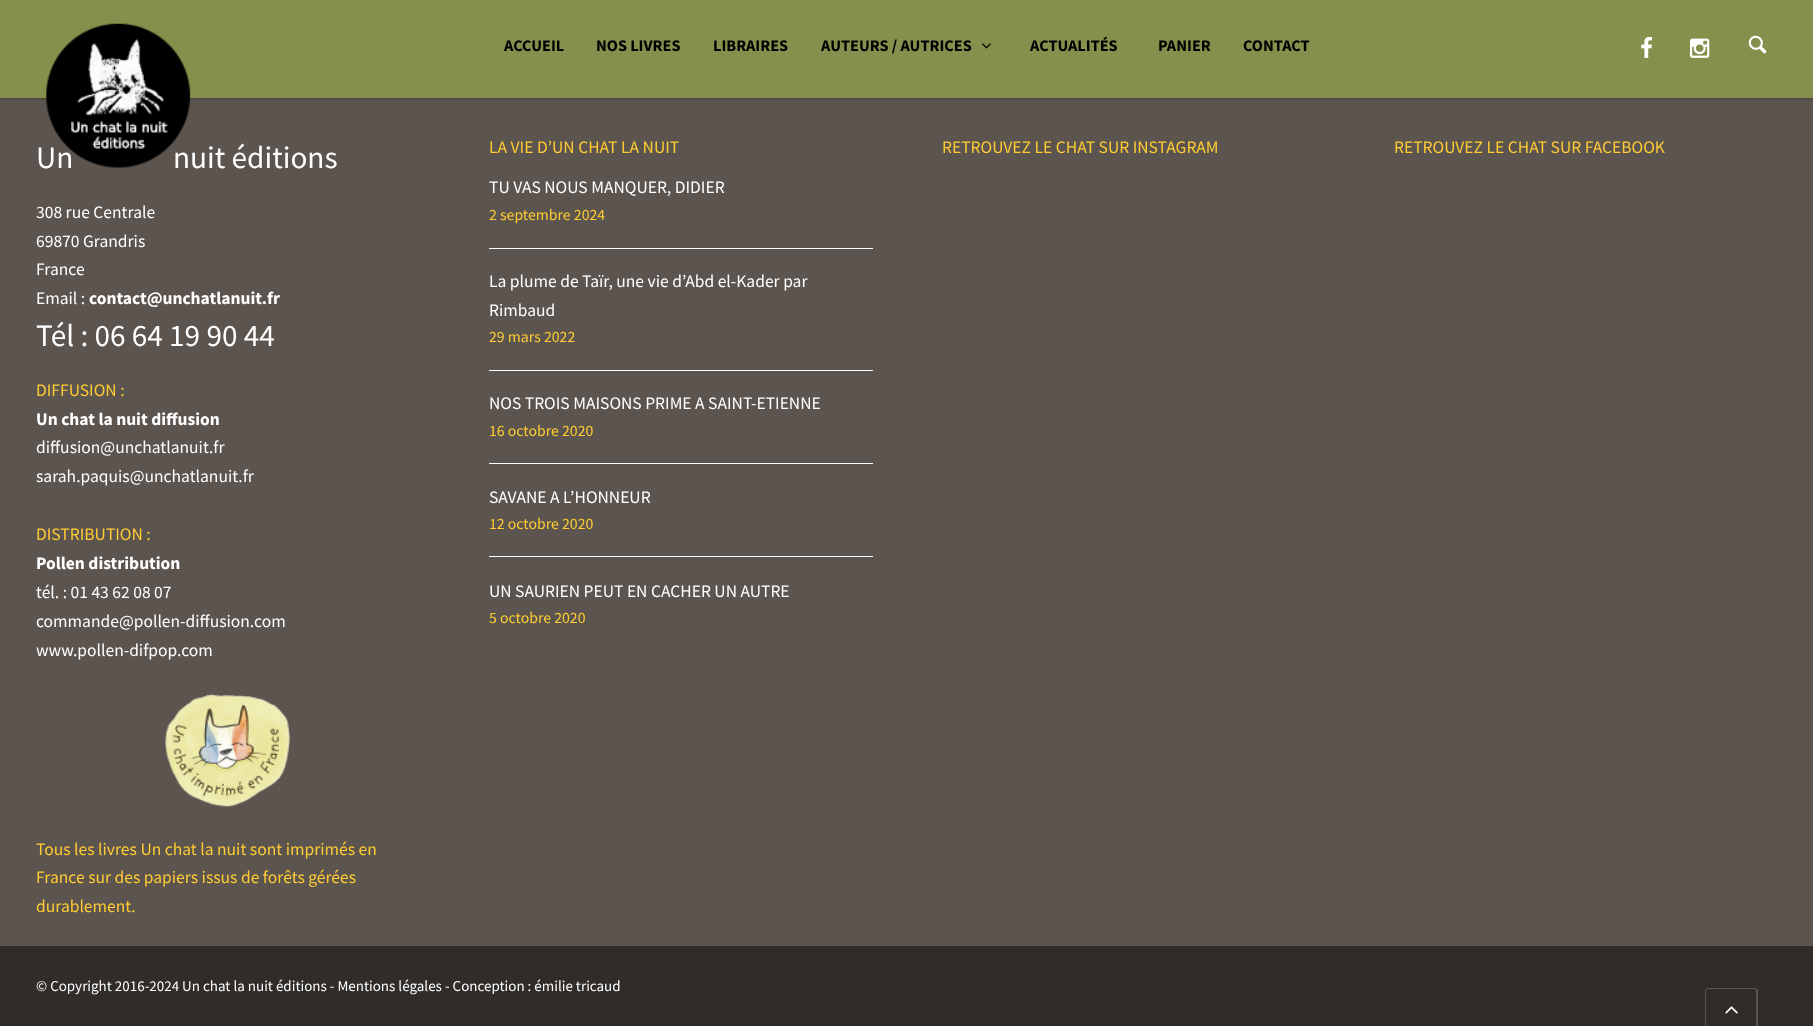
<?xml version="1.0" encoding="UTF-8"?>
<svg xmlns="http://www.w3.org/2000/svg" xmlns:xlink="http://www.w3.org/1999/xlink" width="1813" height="1026">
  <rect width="100%" height="100%" fill="#5c544e" />
  <rect y="1" width="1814" height="98" fill="#000000" fill-opacity="0.25" filter="blur(1px)" />
  <rect width="1813" height="98" fill="#85904c" />
  <image x="982" y="43" width="9" height="6" xlink:href="image2.png" />
  <image x="1641" y="37" width="12" height="21" xlink:href="image3.png" />
  <image x="1690" y="38" width="20" height="20" xlink:href="image4.png" />
  <image x="1748" y="35" width="19" height="19" xlink:href="image5.png" />
  <image x="165" y="693" width="125" height="114" xlink:href="image6.png" />
  <rect x="489" y="248" width="384" height="1" fill="#ffffff" />
  <rect x="489" y="370" width="384" height="1" fill="#ffffff" />
  <rect x="489" y="463" width="384" height="1" fill="#ffffff" />
  <rect x="489" y="556" width="384" height="1" fill="#ffffff" />
  <rect y="946" width="1813" height="80" fill="#2f2c2a" />
  <path d="M 1709 988 h 45 c 2 0 4 1 4 3 v 35 h -53 v -35 c 0 -2 2 -3 4 -3 z m 0 1 h 45 c 1 0 2 1 2 2 v 35 h -50 v -35 c 0 -1 1 -2 3 -2 z" fill="#595655" fill-rule="evenodd" />
  <image x="1725" y="1006" width="13" height="8" xlink:href="image7.png" />
  <text x="504" y="51" style="font-family: Source Sans Pro; font-size: 16.25px; font-weight: bold; fill: #000000">ACCUEIL</text>
  <text x="596" y="51" style="font-family: Source Sans Pro; font-size: 16.25px; font-weight: bold; fill: #000000">NOS LIVRES</text>
  <text x="713" y="51" style="font-family: Source Sans Pro; font-size: 16.25px; font-weight: bold; fill: #000000">LIBRAIRES</text>
  <text x="821" y="51" style="font-family: Source Sans Pro; font-size: 16.25px; font-weight: bold; fill: #000000">AUTEURS / AUTRICES</text>
  <text x="1030" y="51" style="font-family: Source Sans Pro; font-size: 16.25px; font-weight: bold; fill: #000000">ACTUALITÉS</text>
  <text x="1158" y="51" style="font-family: Source Sans Pro; font-size: 16.25px; font-weight: bold; fill: #000000">PANIER</text>
  <text x="1243" y="51" style="font-family: Source Sans Pro; font-size: 16.25px; font-weight: bold; fill: #000000">CONTACT</text>
  <text x="36" y="168" style="font-family: Source Sans Pro; font-size: 31.25px; fill: #ffffff">Un</text>
  <text x="173" y="168" style="font-family: Source Sans Pro; font-size: 31.25px; fill: #ffffff">nuit éditions</text>
  <image x="46" y="23" width="145" height="145" xlink:href="image1.png" />
  <text x="36" y="218" style="font-family: Source Sans Pro; font-size: 17.5px; fill: #ffffff">308 rue Centrale</text>
  <text x="36" y="247" style="font-family: Source Sans Pro; font-size: 17.5px; fill: #ffffff">69870 Grandris</text>
  <text x="36" y="275" style="font-family: Source Sans Pro; font-size: 17.5px; fill: #ffffff">France</text>
  <text x="36" y="304" style="font-family: Source Sans Pro; font-size: 17.5px; fill: #ffffff">Email :</text>
  <text x="89" y="304" style="font-family: Source Sans Pro; font-size: 17.5px; font-weight: bold; fill: #ffffff">contact@unchatlanuit.fr</text>
  <text x="36" y="346" style="font-family: Source Sans Pro; font-size: 31.25px; fill: #ffffff">Tél : 06 64 19 90 44</text>
  <text x="36" y="396" style="font-family: Source Sans Pro; font-size: 17.5px; fill: #ffcc33">DIFFUSION :</text>
  <text x="36" y="425" style="font-family: Source Sans Pro; font-size: 17.5px; font-weight: bold; fill: #ffffff">Un chat la nuit diffusion</text>
  <text x="36" y="453" style="font-family: Source Sans Pro; font-size: 17.5px; fill: #ffffff">diffusion@unchatlanuit.fr</text>
  <text x="36" y="482" style="font-family: Source Sans Pro; font-size: 17.5px; fill: #ffffff">sarah.paquis@unchatlanuit.fr</text>
  <text x="36" y="540" style="font-family: Source Sans Pro; font-size: 17.5px; fill: #ffcc33">DISTRIBUTION :</text>
  <text x="36" y="569" style="font-family: Source Sans Pro; font-size: 17.5px; font-weight: bold; fill: #ffffff">Pollen distribution</text>
  <text x="36" y="598" style="font-family: Source Sans Pro; font-size: 17.5px; fill: #ffffff">tél. : 01 43 62 08 07</text>
  <text x="36" y="627" style="font-family: Source Sans Pro; font-size: 17.5px; fill: #ffffff">commande@pollen-diffusion.com</text>
  <text x="36" y="656" style="font-family: Source Sans Pro; font-size: 17.5px; fill: #ffffff">www.pollen-difpop.com</text>
  <text x="36" y="855" style="font-family: Source Sans Pro; font-size: 17.5px; fill: #ffcc33">Tous les livres Un chat la nuit sont imprimés en</text>
  <text x="36" y="883" style="font-family: Source Sans Pro; font-size: 17.5px; fill: #ffcc33">France sur des papiers issus de forêts gérées</text>
  <text x="36" y="912" style="font-family: Source Sans Pro; font-size: 17.5px; fill: #ffcc33">durablement.</text>
  <text x="489" y="153" style="font-family: Source Sans Pro; font-size: 17.5px; fill: #ffcc33">LA VIE D’UN CHAT LA NUIT</text>
  <text x="489" y="193" style="font-family: Source Sans Pro; font-size: 17.5px; fill: #ffffff">TU VAS NOUS MANQUER, DIDIER</text>
  <text x="489" y="220" style="font-family: Source Sans Pro; font-size: 15.75px; fill: #ffcc33">2 septembre 2024</text>
  <text x="489" y="287" style="font-family: Source Sans Pro; font-size: 17.5px; fill: #ffffff">La plume de Taïr, une vie d’Abd el-Kader par</text>
  <text x="489" y="316" style="font-family: Source Sans Pro; font-size: 17.5px; fill: #ffffff">Rimbaud</text>
  <text x="489" y="342" style="font-family: Source Sans Pro; font-size: 15.75px; fill: #ffcc33">29 mars 2022</text>
  <text x="489" y="409" style="font-family: Source Sans Pro; font-size: 17.5px; fill: #ffffff">NOS TROIS MAISONS PRIME A SAINT-ETIENNE</text>
  <text x="489" y="436" style="font-family: Source Sans Pro; font-size: 15.75px; fill: #ffcc33">16 octobre 2020</text>
  <text x="489" y="503" style="font-family: Source Sans Pro; font-size: 17.5px; fill: #ffffff">SAVANE A L’HONNEUR</text>
  <text x="489" y="529" style="font-family: Source Sans Pro; font-size: 15.75px; fill: #ffcc33">12 octobre 2020</text>
  <text x="489" y="597" style="font-family: Source Sans Pro; font-size: 17.5px; fill: #ffffff">UN SAURIEN PEUT EN CACHER UN AUTRE</text>
  <text x="489" y="623" style="font-family: Source Sans Pro; font-size: 15.75px; fill: #ffcc33">5 octobre 2020</text>
  <text x="942" y="153" style="font-family: Source Sans Pro; font-size: 17.5px; fill: #ffcc33">RETROUVEZ LE CHAT SUR INSTAGRAM</text>
  <text x="1394" y="153" style="font-family: Source Sans Pro; font-size: 17.5px; fill: #ffcc33">RETROUVEZ LE CHAT SUR FACEBOOK</text>
  <text x="36" y="991" style="font-family: Source Sans Pro; font-size: 15px; fill: #ffffff">© Copyright 2016-2024 Un chat la nuit éditions - Mentions légales - Conception : émilie tricaud</text>
</svg>
